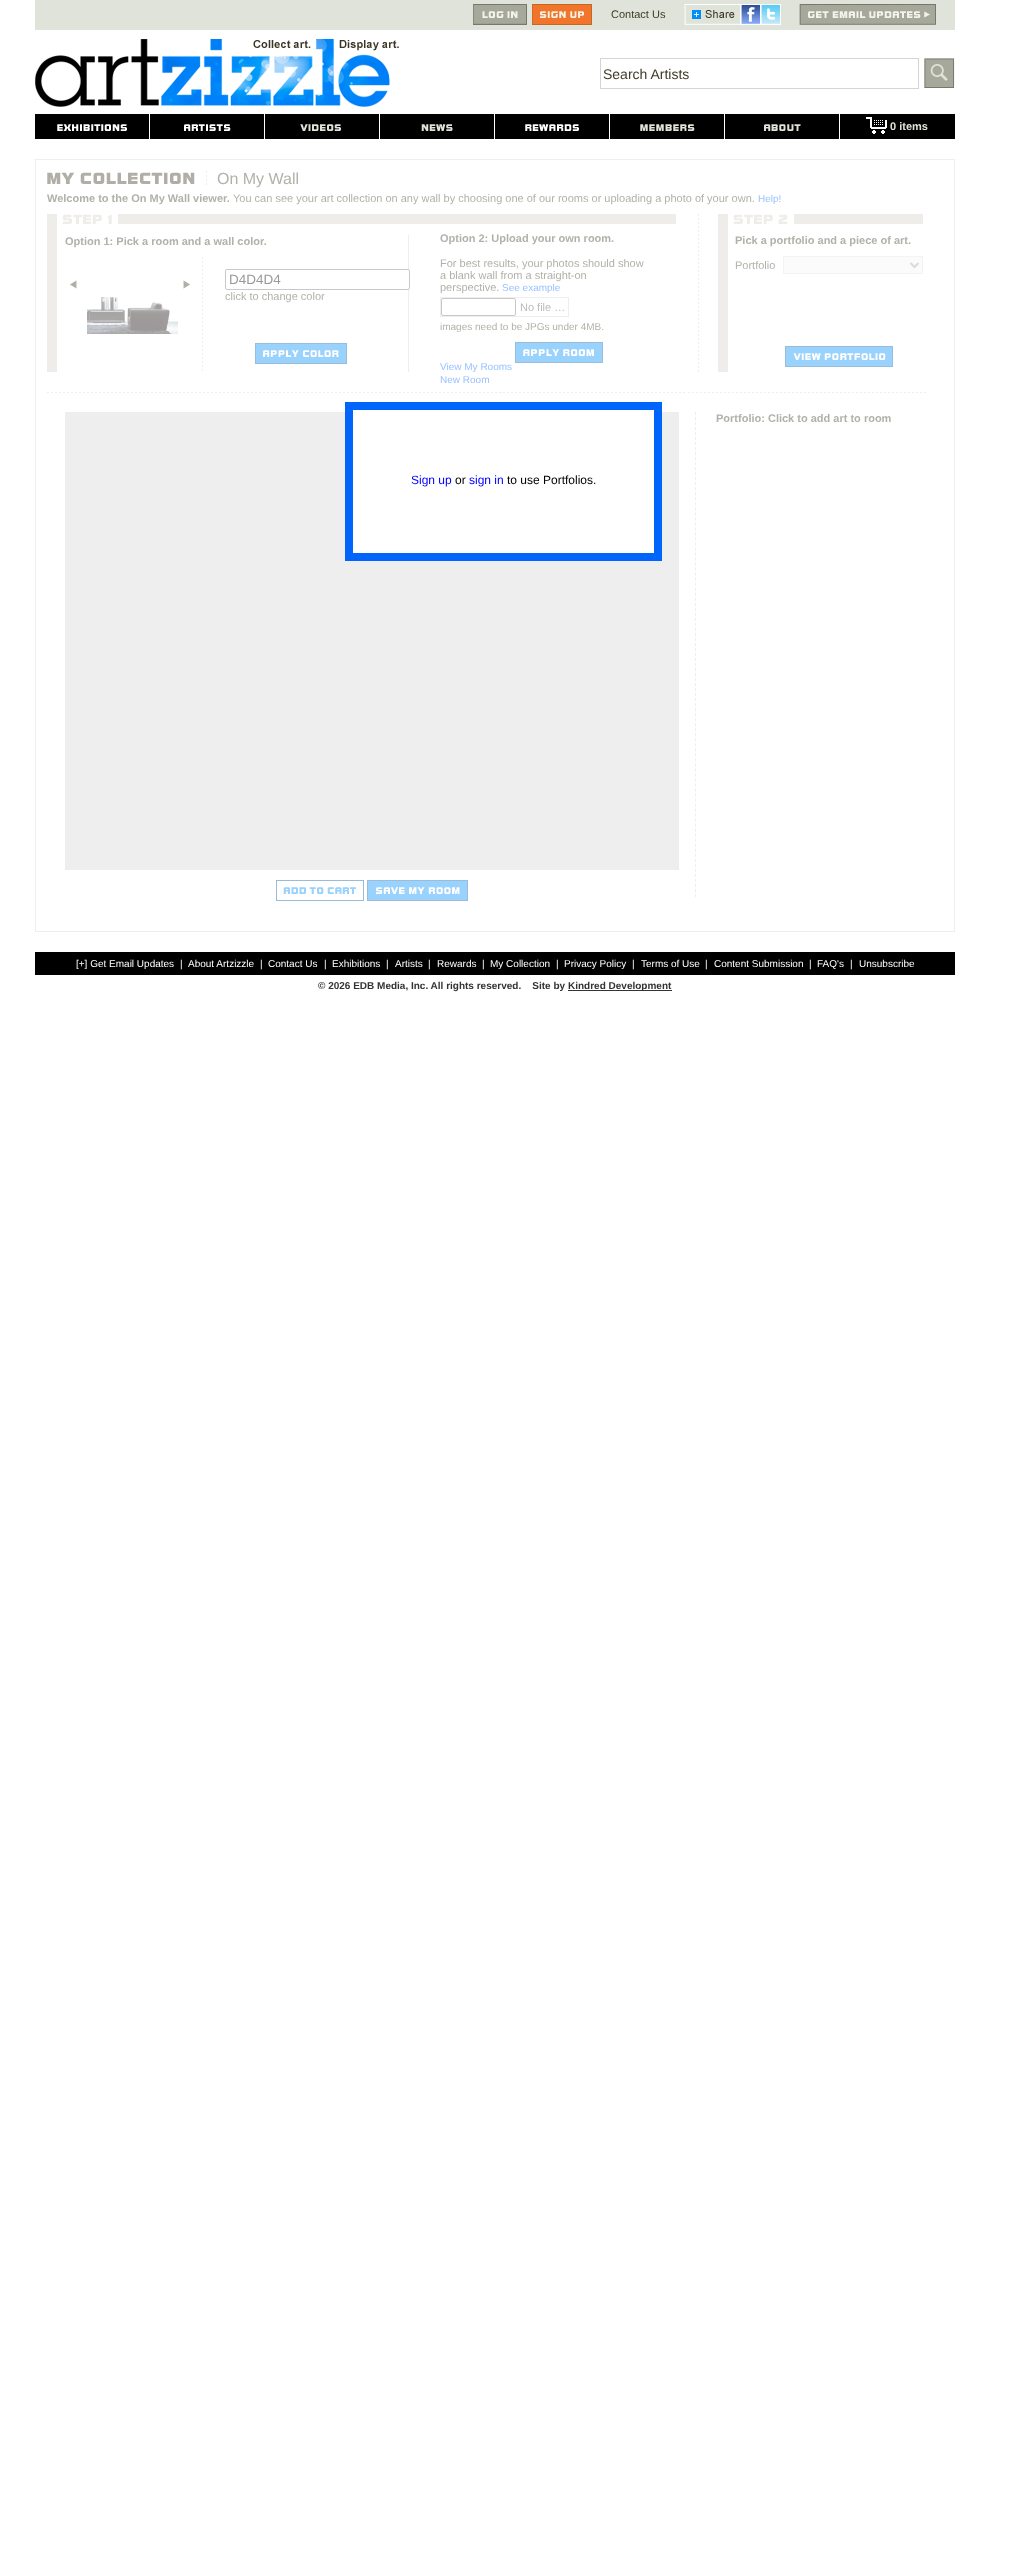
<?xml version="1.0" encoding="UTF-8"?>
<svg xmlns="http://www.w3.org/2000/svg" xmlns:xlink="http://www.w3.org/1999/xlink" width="1009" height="2569">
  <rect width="100%" height="100%" fill="#ffffff" />
  <rect x="35" width="920" height="30" fill="#dfe3d9" />
  <image x="473" y="4" width="54" height="21" xlink:href="image1.png" />
  <image x="532" y="4" width="60" height="21" xlink:href="image2.png" />
  <image x="684" y="4" width="97" height="21" xlink:href="image3.png" />
  <image x="799" y="4" width="137" height="21" xlink:href="image4.png" />
  <image x="35" y="39" width="364" height="68" xlink:href="image5.png" />
  <rect x="600.5" y="58.5" width="318" height="30" fill="none" stroke="#d4d4d4" />
  <image x="924" y="58" width="31" height="30" xlink:href="image6.png" />
  <rect x="35" y="114" width="920" height="25" fill="#000000" />
  <rect x="149" y="114" width="1" height="25" fill="#ffffff" />
  <image x="57" y="124" width="70" height="7" xlink:href="image7.png" />
  <rect x="264" y="114" width="1" height="25" fill="#ffffff" />
  <image x="184" y="124" width="47" height="7" xlink:href="image8.png" />
  <rect x="379" y="114" width="1" height="25" fill="#ffffff" />
  <image x="300" y="124" width="41" height="7" xlink:href="image9.png" />
  <rect x="494" y="114" width="1" height="25" fill="#ffffff" />
  <image x="421" y="124" width="32" height="7" xlink:href="image10.png" />
  <rect x="609" y="114" width="1" height="25" fill="#ffffff" />
  <image x="525" y="124" width="54" height="7" xlink:href="image11.png" />
  <rect x="724" y="114" width="1" height="25" fill="#ffffff" />
  <image x="640" y="124" width="55" height="7" xlink:href="image12.png" />
  <rect x="839" y="114" width="1" height="25" fill="#ffffff" />
  <image x="764" y="124" width="37" height="7" xlink:href="image13.png" />
  <image x="866" y="117" width="21" height="17" xlink:href="image14.png" />
  <rect x="35.5" y="159.5" width="919" height="772" fill="none" stroke="#eeeeee" />
  <image x="47" y="171" width="160" height="14" xlink:href="image15.png" />
  <image x="47" y="214" width="629" height="158" xlink:href="image16.png" />
  <rect x="440.5" y="297.5" width="128" height="19" fill="none" stroke="#eeeeee" />
  <rect x="441.5" y="298.5" width="74" height="17" rx="1.5" fill="none" stroke="#c8c8c8" />
  <image x="515" y="342" width="88" height="21" xlink:href="image17.png" />
  <image x="70" y="280" width="7" height="9" xlink:href="image18.png" />
  <image x="183" y="280" width="7" height="9" xlink:href="image19.png" />
  <image x="87" y="297" width="91" height="37" xlink:href="image20.png" />
  <rect x="225.5" y="269.5" width="184" height="20" rx="1.5" fill="#ffffff" stroke="#c8c8c8" />
  <image x="255" y="343" width="92" height="21" xlink:href="image21.png" />
  <image x="698" y="214" width="225" height="158" xlink:href="image22.png" />
  <rect x="783.5" y="256.5" width="139" height="17" fill="#fbfbfb" stroke="#f3f3f3" />
  <path d="M 910.5 263 l 4 4 l 4 -4" fill="none" stroke="#dbdbdb" stroke-width="2" />
  <image x="785" y="346" width="108" height="21" xlink:href="image23.png" />
  <image x="47" y="392" width="879" height="1" xlink:href="image24.png" />
  <rect x="65" y="412" width="614" height="458" fill="#eeeeee" />
  <path d="M 695.5 412 v 485" fill="none" stroke="#eeeeee" stroke-dasharray="3 2.02" />
  <image x="276" y="880" width="88" height="21" xlink:href="image25.png" />
  <image x="367" y="880" width="101" height="21" xlink:href="image26.png" />
  <rect x="353" y="412" width="301" height="141" fill="#ffffff" />
  <rect x="349" y="406" width="309" height="151" fill="none" stroke="#0065fb" stroke-width="8" />
  <rect x="35" y="952" width="920" height="23" fill="#000000" />
  <rect x="568" y="990" width="104" height="1" fill="#333333" />
  <text x="611" y="18" style="font-family: Liberation Sans; font-size: 11px; fill: #3e3b27">Contact Us</text>
  <text x="603" y="79" style="font-family: Liberation Sans; font-size: 14px; fill: #3e3b27">Search Artists</text>
  <text x="890" y="130" style="font-family: Liberation Sans; font-size: 11px; font-weight: bold; fill: #dee5d6">0 items</text>
  <text x="217" y="184" style="font-family: Liberation Sans; font-size: 16px; fill: #b2b1a9">On My Wall</text>
  <text x="47" y="202" style="font-family: Liberation Sans; font-size: 11px; font-weight: bold; fill: #b2b1a9">Welcome to the On My Wall viewer.</text>
  <text x="233" y="202" style="font-family: Liberation Sans; font-size: 11px; fill: #b2b1a9">You can see your art collection on any wall by choosing one of our rooms or uploading a photo of your own.</text>
  <text x="758" y="202" style="font-family: Liberation Sans; font-size: 10px; fill: #99c2ff">Help!</text>
  <text x="65" y="245" style="font-family: Liberation Sans; font-size: 11px; font-weight: bold; fill: #b2b1a9">Option 1: Pick a room and a wall color.</text>
  <text x="440" y="242" style="font-family: Liberation Sans; font-size: 11px; font-weight: bold; fill: #b2b1a9">Option 2: Upload your own room.</text>
  <text x="440" y="267" style="font-family: Liberation Sans; font-size: 11px; fill: #b2b1a9">For best results, your photos should show</text>
  <text x="440" y="279" style="font-family: Liberation Sans; font-size: 11px; fill: #b2b1a9">a blank wall from a straight-on</text>
  <text x="440" y="291" style="font-family: Liberation Sans; font-size: 11px; fill: #b2b1a9">perspective.</text>
  <text x="502" y="291" style="font-family: Liberation Sans; font-size: 10px; fill: #99c2ff">See example</text>
  <text x="520" y="311" style="font-family: Liberation Sans; font-size: 11px; fill: #bbbbbb">No file …</text>
  <text x="440" y="330" style="font-family: Liberation Sans; font-size: 10px; fill: #b2b1a9">images need to be JPGs under 4MB.</text>
  <text x="440" y="370" style="font-family: Liberation Sans; font-size: 10px; fill: #99c2ff">View My Rooms</text>
  <text x="440" y="383" style="font-family: Liberation Sans; font-size: 10px; fill: #99c2ff">New Room</text>
  <text x="229" y="284" style="font-family: Liberation Sans; font-size: 13.5px; fill: #999999">D4D4D4</text>
  <text x="225" y="300" style="font-family: Liberation Sans; font-size: 11px; fill: #b2b1a9">click to change color</text>
  <text x="735" y="244" style="font-family: Liberation Sans; font-size: 11px; font-weight: bold; fill: #b2b1a9">Pick a portfolio and a piece of art.</text>
  <text x="735" y="269" style="font-family: Liberation Sans; font-size: 11px; fill: #b2b1a9">Portfolio</text>
  <text x="716" y="422" style="font-family: Liberation Sans; font-size: 11px; font-weight: bold; fill: #b2b1a9">Portfolio: Click to add art to room</text>
  <text x="411" y="484" style="font-family: Liberation Sans; font-size: 12px; fill: #0000ff">Sign up</text>
  <text x="455" y="484" style="font-family: Liberation Sans; font-size: 12px; fill: #000000">or</text>
  <text x="469" y="484" style="font-family: Liberation Sans; font-size: 12px; fill: #0000ff">sign in</text>
  <text x="507" y="484" style="font-family: Liberation Sans; font-size: 12px; fill: #000000">to use Portfolios.</text>
  <text x="76" y="967" style="font-family: Liberation Sans; font-size: 10px; fill: #ffffff">[+] Get Email Updates</text>
  <text x="180" y="967" style="font-family: Liberation Sans; font-size: 10px; fill: #ffffff">|</text>
  <text x="188" y="967" style="font-family: Liberation Sans; font-size: 10px; fill: #ffffff">About Artzizzle</text>
  <text x="260" y="967" style="font-family: Liberation Sans; font-size: 10px; fill: #ffffff">|</text>
  <text x="268" y="967" style="font-family: Liberation Sans; font-size: 10px; fill: #ffffff">Contact Us</text>
  <text x="324" y="967" style="font-family: Liberation Sans; font-size: 10px; fill: #ffffff">|</text>
  <text x="332" y="967" style="font-family: Liberation Sans; font-size: 10px; fill: #ffffff">Exhibitions</text>
  <text x="386" y="967" style="font-family: Liberation Sans; font-size: 10px; fill: #ffffff">|</text>
  <text x="395" y="967" style="font-family: Liberation Sans; font-size: 10px; fill: #ffffff">Artists</text>
  <text x="428" y="967" style="font-family: Liberation Sans; font-size: 10px; fill: #ffffff">|</text>
  <text x="437" y="967" style="font-family: Liberation Sans; font-size: 10px; fill: #ffffff">Rewards</text>
  <text x="482" y="967" style="font-family: Liberation Sans; font-size: 10px; fill: #ffffff">|</text>
  <text x="490" y="967" style="font-family: Liberation Sans; font-size: 10px; fill: #ffffff">My Collection</text>
  <text x="556" y="967" style="font-family: Liberation Sans; font-size: 10px; fill: #ffffff">|</text>
  <text x="564" y="967" style="font-family: Liberation Sans; font-size: 10px; fill: #ffffff">Privacy Policy</text>
  <text x="632" y="967" style="font-family: Liberation Sans; font-size: 10px; fill: #ffffff">|</text>
  <text x="641" y="967" style="font-family: Liberation Sans; font-size: 10px; fill: #ffffff">Terms of Use</text>
  <text x="705" y="967" style="font-family: Liberation Sans; font-size: 10px; fill: #ffffff">|</text>
  <text x="714" y="967" style="font-family: Liberation Sans; font-size: 10px; fill: #ffffff">Content Submission</text>
  <text x="809" y="967" style="font-family: Liberation Sans; font-size: 10px; fill: #ffffff">|</text>
  <text x="817" y="967" style="font-family: Liberation Sans; font-size: 10px; fill: #ffffff">FAQ's</text>
  <text x="850" y="967" style="font-family: Liberation Sans; font-size: 10px; fill: #ffffff">|</text>
  <text x="859" y="967" style="font-family: Liberation Sans; font-size: 10px; fill: #ffffff">Unsubscribe</text>
  <text x="318" y="989" style="font-family: Liberation Sans; font-size: 10px; font-weight: bold; fill: #333333" xml:space="preserve">© 2026 EDB Media, Inc. All rights reserved.    Site by</text>
  <text x="568" y="989" style="font-family: Liberation Sans; font-size: 10px; font-weight: bold; fill: #333333">Kindred Development</text>
</svg>
